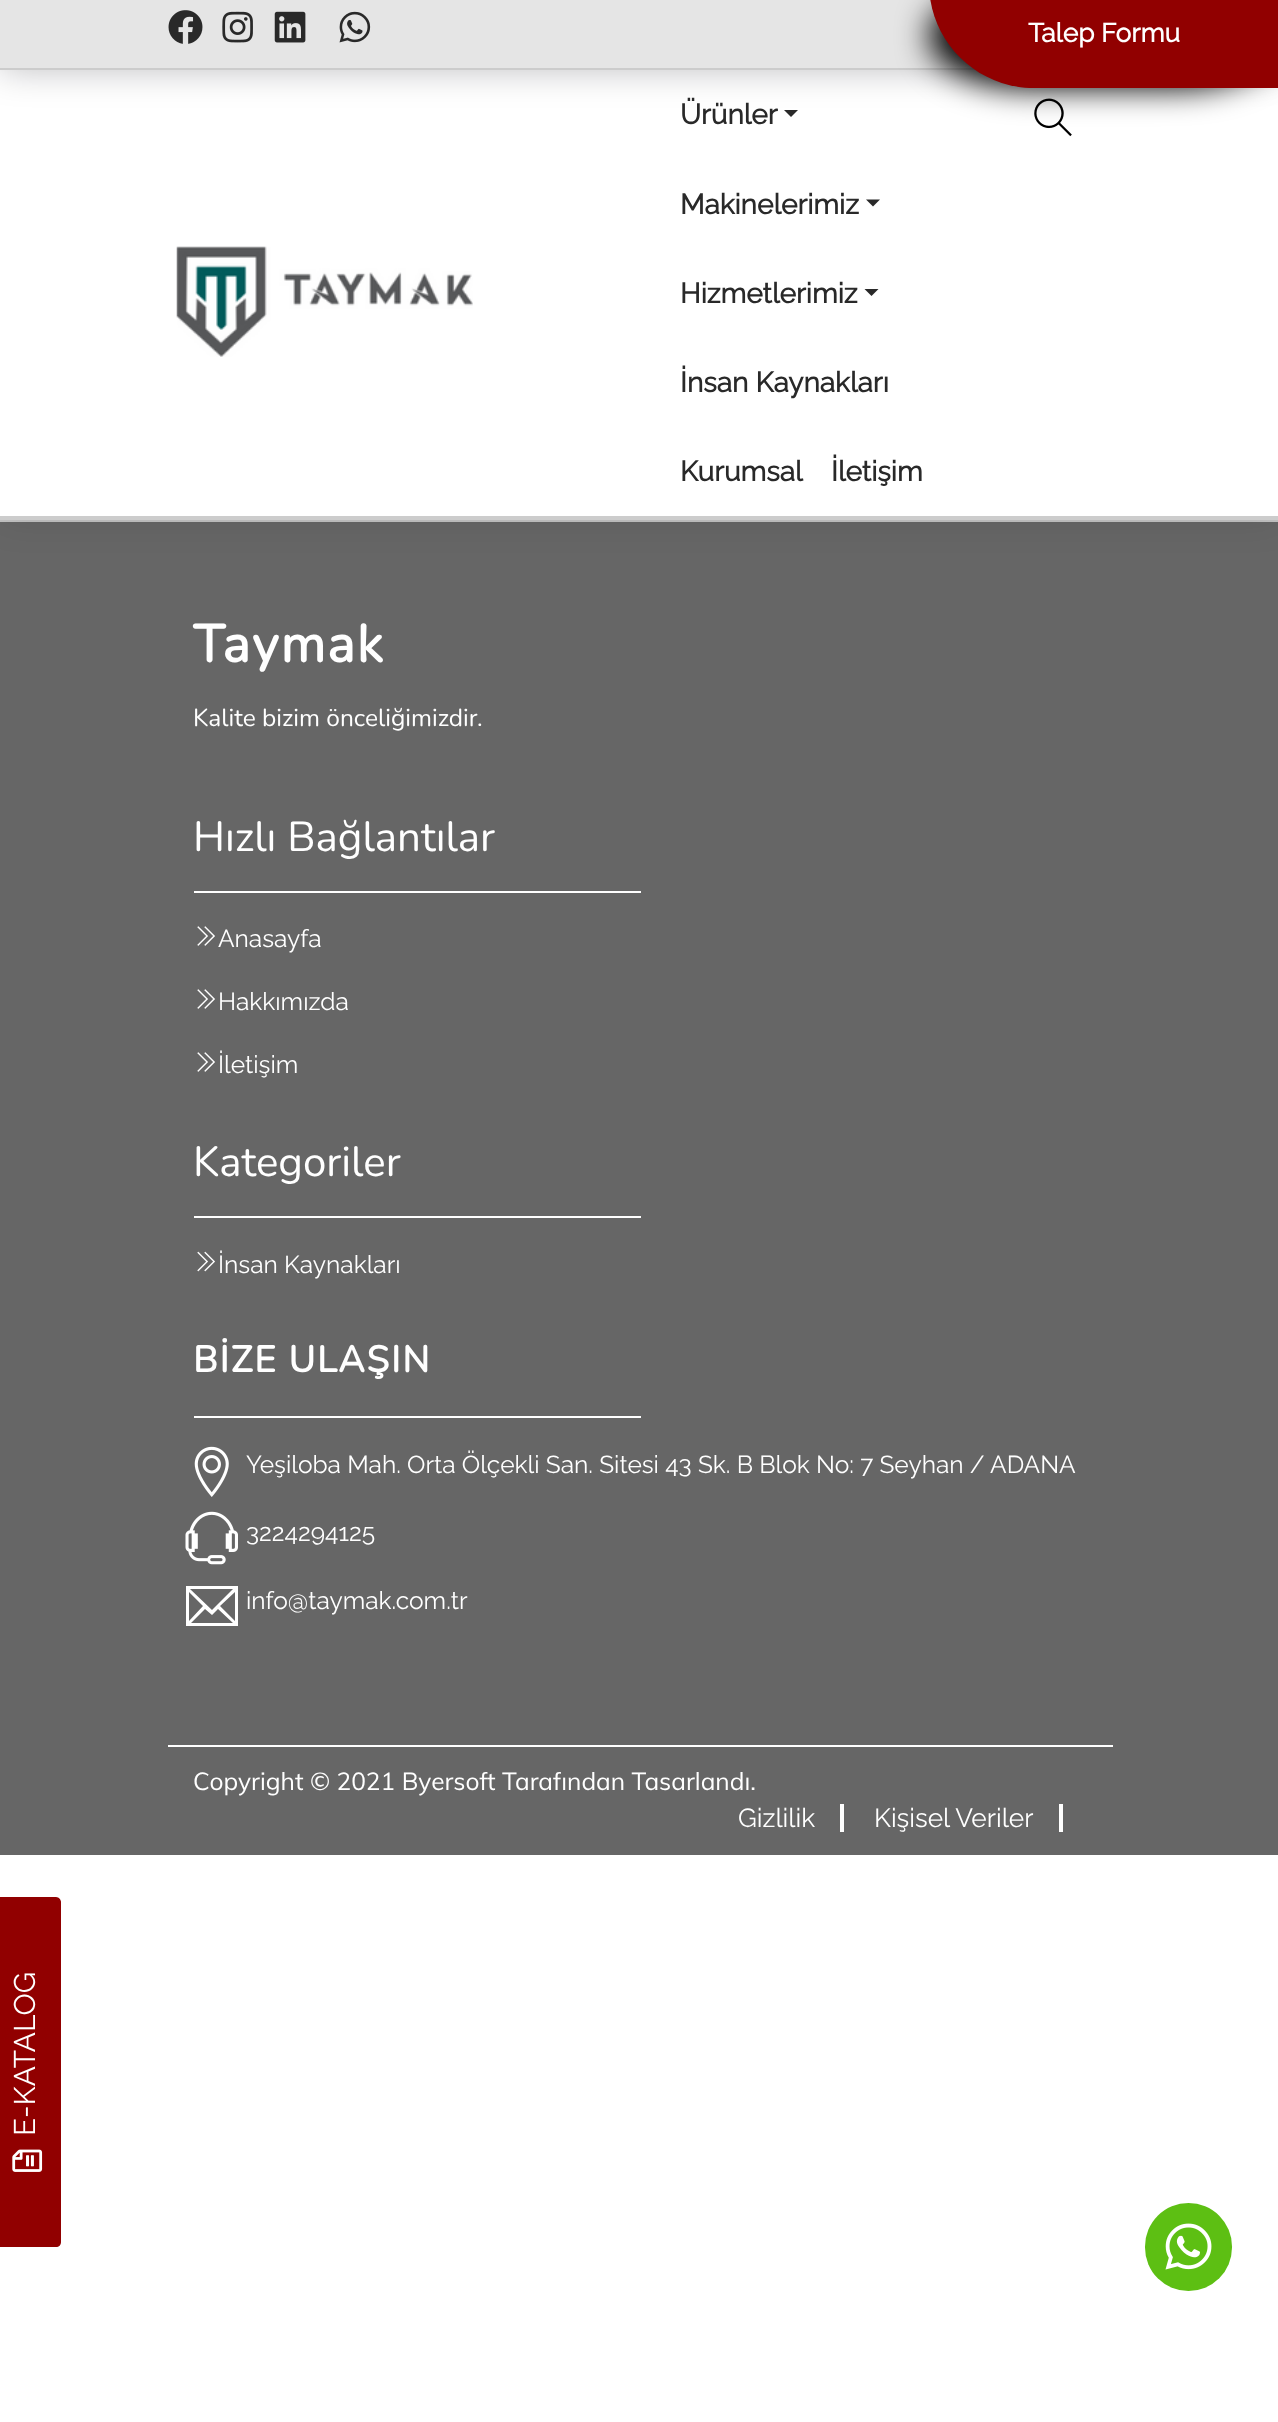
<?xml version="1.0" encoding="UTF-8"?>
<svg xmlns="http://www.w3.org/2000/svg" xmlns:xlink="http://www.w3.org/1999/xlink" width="1278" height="2422">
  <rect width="100%" height="100%" fill="#ffffff" />
  <rect y="522" width="1278" height="1333" fill="#666666" />
  <rect y="520" width="1278" height="2" fill="#c3c3c3" />
  <rect width="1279" height="520" fill="#000000" fill-opacity="0.1" filter="blur(17.5px)" />
  <rect y="70" width="1278" height="446" fill="#ffffff" />
  <rect width="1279" height="70" fill="#00000a" fill-opacity="0.25" filter="blur(17.5px)" />
  <rect width="973" height="68" fill="#e5e5e5" />
  <rect y="68" width="976" height="2" fill="#cccccc" />
  <image x="168" y="10" width="35" height="34" xlink:href="image1.png" />
  <image x="222" y="11" width="31" height="32" xlink:href="image2.png" />
  <image x="274" y="11" width="32" height="32" xlink:href="image3.png" />
  <image x="339" y="11" width="32" height="32" xlink:href="image4.png" />
  <rect x="929" y="-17" width="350" height="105" rx="105" fill="#000000" filter="blur(16px)" />
  <path d="M 929 -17 h 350 v 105 h -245 c -58 0 -105 -47 -105 -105 z" fill="#910000" />
  <rect y="516" width="1278" height="4" fill="#cccccc" />
  <image x="176" y="246" width="297" height="111" xlink:href="image5.png" />
  <path d="M 784 110 h 14 l -7 7 z" fill="#292929" />
  <path d="M 866 199.5 h 14 l -7 7 z" fill="#292929" />
  <path d="M 864.5 289 h 14 l -7 7 z" fill="#292929" />
  <image x="1034" y="98" width="38" height="39" xlink:href="image6.png" />
  <rect x="194" y="891" width="447" height="2" fill="#ffffff" />
  <image x="197" y="926" width="18" height="20" xlink:href="image7.png" />
  <image x="197" y="989" width="18" height="20" xlink:href="image7.png" />
  <image x="197" y="1052" width="18" height="20" xlink:href="image7.png" />
  <rect x="194" y="1216" width="447" height="2" fill="#ffffff" />
  <image x="197" y="1251" width="18" height="21" xlink:href="image8.png" />
  <rect x="194" y="1416" width="447" height="2" fill="#ffffff" />
  <image x="194" y="1446" width="35" height="51" xlink:href="image9.png" />
  <image x="185" y="1511" width="53" height="54" xlink:href="image10.png" />
  <path d="M 186 1586 v 40 h 52 v -40 z m 26 24 l -22 -21 h 43 z m -9 -4 l -14 15 v -29 z m 2 3 l 7 6 l 6 -6 l 15 14 h -42 z m 15 -3 l 15 -14 v 29 z" fill="#ffffff" />
  <rect x="168" y="1745" width="945" height="2" fill="#ffffff" />
  <rect x="840" y="1804" width="4" height="28" fill="#ffffff" />
  <rect x="1059" y="1804" width="4" height="28" fill="#ffffff" />
  <path d="M -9 2242 v -340 c 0 -2 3 -5 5 -5 h 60 c 3 0 5 3 5 5 v 340 c 0 3 -2 5 -5 5 h -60 c -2 0 -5 -2 -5 -5 z" fill="#910000" />
  <image x="12" y="2149" width="31" height="23" xlink:href="image11.png" />
  <rect x="1145" y="2203" width="87" height="88" rx="43.5" fill="#5dbf13" />
  <image x="1165" y="2223" width="47" height="47" xlink:href="image12.png" />
  <text x="1028" y="42" style="font-family: Raleway; font-size: 26.25px; font-weight: bold; fill: #ffffff">Talep Formu</text>
  <text x="680" y="124" style="font-family: Raleway; font-size: 28px; font-weight: bold; fill: #292929">Ürünler</text>
  <text x="680" y="214" style="font-family: Raleway; font-size: 28px; font-weight: bold; fill: #292929">Makinelerimiz</text>
  <text x="680" y="303" style="font-family: Raleway; font-size: 28px; font-weight: bold; fill: #292929">Hizmetlerimiz</text>
  <text x="680" y="392" style="font-family: Raleway; font-size: 28px; font-weight: bold; fill: #292929">İnsan Kaynakları</text>
  <text x="680" y="481" style="font-family: Raleway; font-size: 28px; font-weight: bold; fill: #292929">Kurumsal</text>
  <text x="831" y="481" style="font-family: Raleway; font-size: 28px; font-weight: bold; fill: #292929">İletişim</text>
  <text x="193" y="662" style="font-family: Nunito; font-size: 52.5px; font-weight: bold; letter-spacing: 1.75px; fill: #ffffff">Taymak</text>
  <text x="193" y="726" style="font-family: Nunito; font-size: 24.5px; font-weight: 200; fill: #ffffff">Kalite bizim önceliğimizdir.</text>
  <text x="193" y="851" style="font-family: Nunito; font-size: 42px; font-weight: 200; fill: #ffffff">Hızlı Bağlantılar</text>
  <text x="218" y="947" style="font-family: Raleway; font-size: 24.5px; font-weight: 100; fill: #ffffff">Anasayfa</text>
  <text x="218" y="1010" style="font-family: Raleway; font-size: 24.5px; font-weight: 100; fill: #ffffff">Hakkımızda</text>
  <text x="218" y="1073" style="font-family: Raleway; font-size: 24.5px; font-weight: 100; fill: #ffffff">İletişim</text>
  <text x="193" y="1176" style="font-family: Nunito; font-size: 42px; font-weight: 200; fill: #ffffff">Kategoriler</text>
  <text x="218" y="1273" style="font-family: Raleway; font-size: 24.5px; font-weight: 100; fill: #ffffff">İnsan Kaynakları</text>
  <text x="193" y="1372" style="font-family: Nunito; font-size: 36.75px; font-weight: bold; letter-spacing: 1.75px; fill: #ffffff">BİZE ULAŞIN</text>
  <text x="246" y="1473" style="font-family: Raleway; font-size: 24.5px; font-weight: 100; fill: #ffffff">Yeşiloba Mah. Orta Ölçekli San. Sitesi 43 Sk. B Blok No: 7 Seyhan / ADANA</text>
  <text x="246" y="1541" style="font-family: Raleway; font-size: 24.5px; font-weight: 100; fill: #ffffff">3224294125</text>
  <text x="246" y="1609" style="font-family: Raleway; font-size: 24.5px; font-weight: 100; fill: #ffffff">info@taymak.com.tr</text>
  <text x="193" y="1790" style="font-family: Muli; font-size: 24.5px; fill: #ffffff">Copyright © 2021 Byersoft Tarafından Tasarlandı.</text>
  <text x="738" y="1827" style="font-family: Raleway; font-size: 26.25px; font-weight: 100; fill: #ffffff">Gizlilik</text>
  <text x="874" y="1827" style="font-family: Raleway; font-size: 26.25px; font-weight: 100; fill: #ffffff">Kişisel Veriler</text>
  <text x="35" y="2136" transform="rotate(-90 35 2136)" style="font-family: Raleway; font-size: 29.75px; font-weight: 100; fill: #ffffff">E-KATALOG</text>
</svg>
